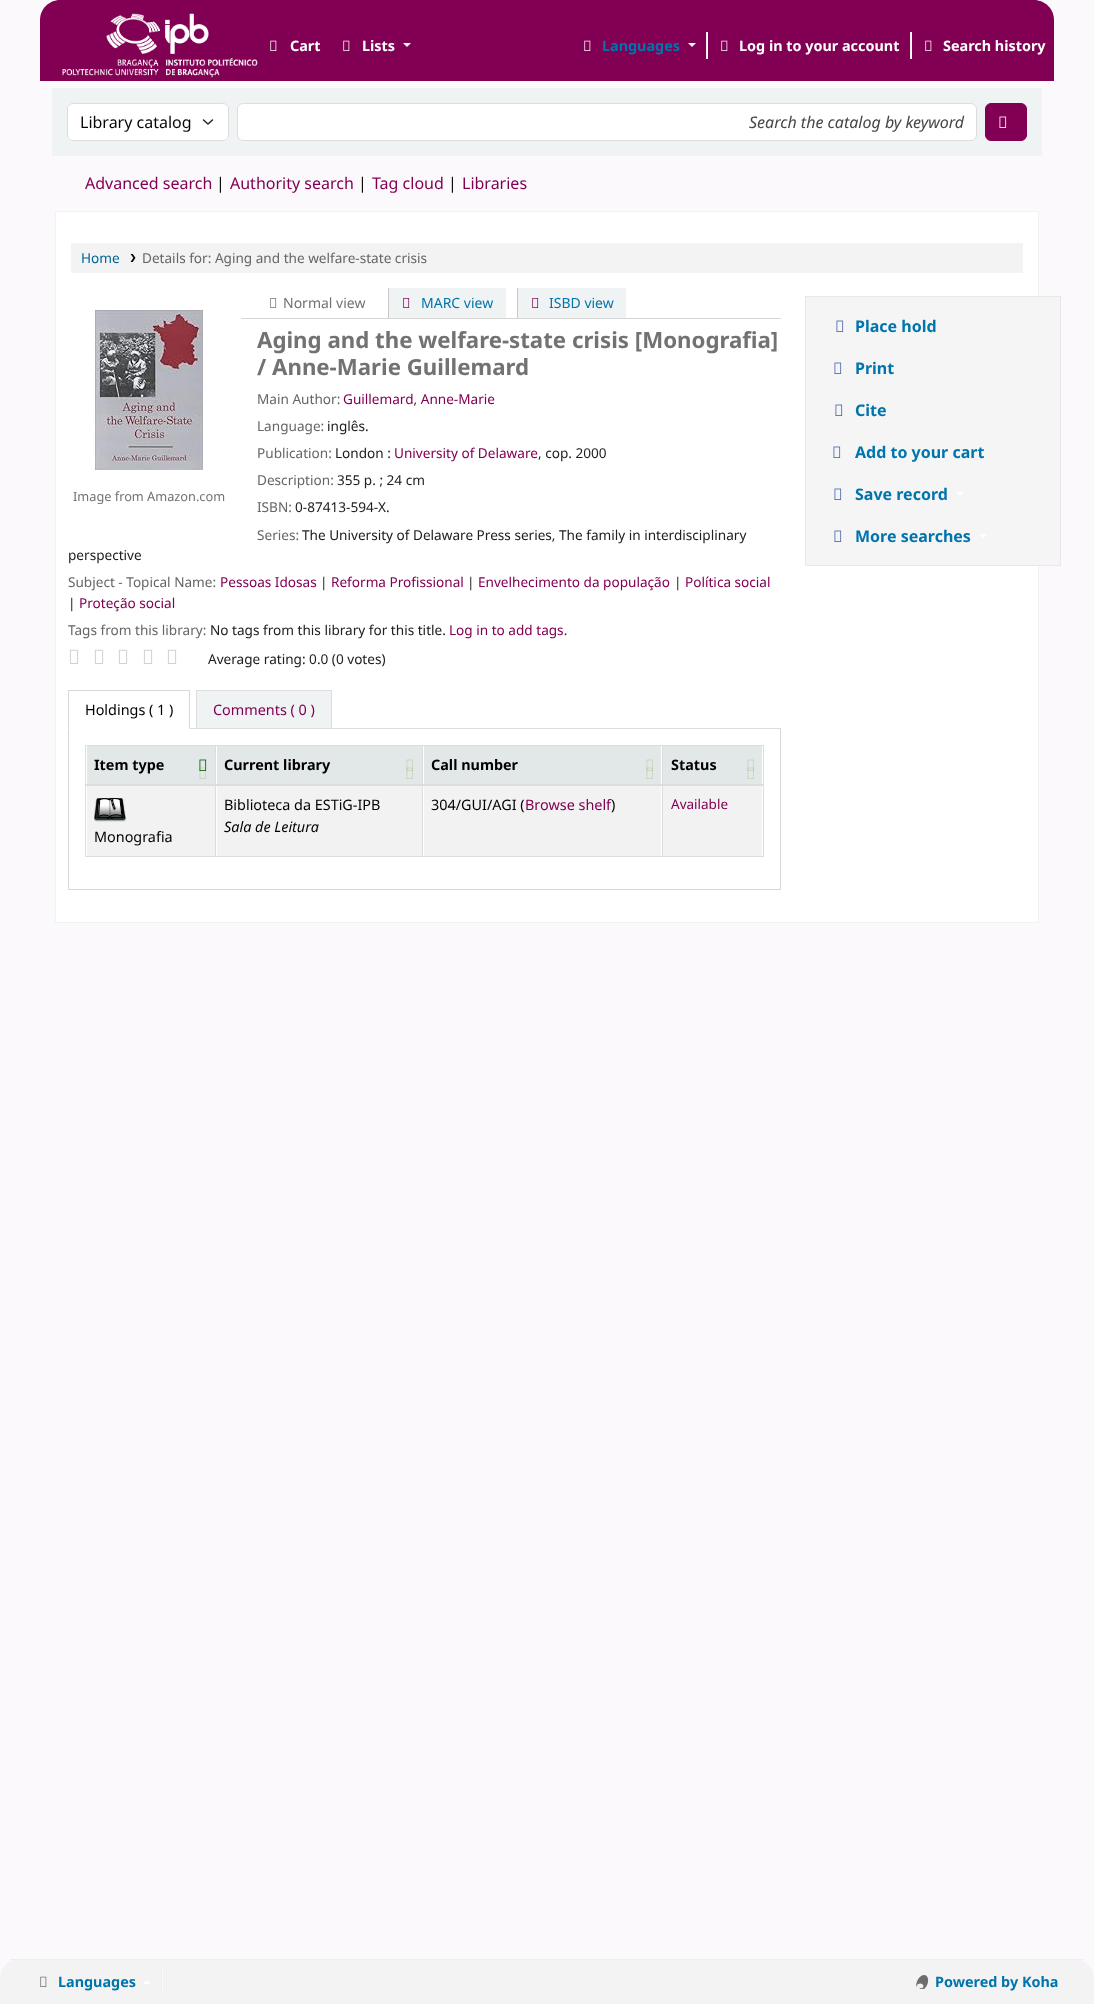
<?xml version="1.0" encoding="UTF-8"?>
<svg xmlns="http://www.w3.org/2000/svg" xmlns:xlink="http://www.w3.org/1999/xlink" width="1094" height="2004">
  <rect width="100%" height="100%" fill="#fcf9fc" />
  <path d="M 60 0 h 974 c 11 0 20 9 20 20 v 61 h -1014 v -61 c 0 -11 9 -20 20 -20 z" fill="#820053" />
  <image x="62" y="13" width="196" height="65" xlink:href="image1.png" />
  <image x="270" y="40" width="7" height="11" xlink:href="image2.png" />
  <image x="343" y="40" width="7" height="11" xlink:href="image2.png" />
  <path d="M 403 43 h 8 l -4 4 z" fill="#ffffff" />
  <image x="584" y="40" width="7" height="11" xlink:href="image2.png" />
  <path d="M 688 43 h 8 l -4 4 z" fill="#ffffff" />
  <rect x="707" y="32" width="1" height="27" fill="#fcf9fc" />
  <rect x="706" y="58" width="2" height="1" fill="#eeeeee" />
  <rect x="706" y="32" width="1" height="27" fill="#eeeeee" />
  <image x="721" y="40" width="7" height="11" xlink:href="image2.png" />
  <rect x="911" y="32" width="1" height="27" fill="#fcf9fc" />
  <rect x="910" y="58" width="2" height="1" fill="#eeeeee" />
  <rect x="910" y="32" width="1" height="27" fill="#eeeeee" />
  <image x="925" y="40" width="7" height="11" xlink:href="image2.png" />
  <rect x="52" y="88" width="990" height="68" fill="#f0f3f3" />
  <rect x="67" y="103" width="162" height="38" rx="6" fill="#ffffff" />
  <path d="M 203.5 120 l 4.5 4 l 4.5 -4" fill="none" stroke="#252525" stroke-width="1.5" stroke-linecap="round" stroke-linejoin="round" />
  <rect x="67.5" y="103.5" width="161" height="37" rx="5.5" fill="none" stroke="#dddddd" />
  <rect x="237.5" y="103.5" width="739" height="37" rx="5.5" fill="#ffffff" stroke="#dddddd" />
  <rect x="985.5" y="103.5" width="41" height="37" rx="5.5" fill="#820053" stroke="#820053" />
  <image x="999" y="116" width="8" height="12" xlink:href="image3.png" />
  <rect x="55.5" y="211.5" width="983" height="711" fill="#ffffff" stroke="#f0f3f3" />
  <rect x="71" y="243" width="952" height="30" fill="#f3f3f3" />
  <image x="130" y="254" width="6" height="8" xlink:href="image4.png" />
  <rect x="241" y="318" width="540" height="1" fill="#d6d6d6" />
  <image x="270" y="298" width="7" height="10" xlink:href="image5.png" />
  <rect x="389" y="288" width="117" height="30" fill="#f0f3f3" />
  <rect x="388" y="288" width="1" height="30" fill="#c9c9c9" />
  <image x="403" y="298" width="7" height="10" xlink:href="image6.png" />
  <rect x="518" y="288" width="108" height="30" fill="#f0f3f3" />
  <rect x="517" y="288" width="1" height="30" fill="#c9c9c9" />
  <image x="532" y="298" width="7" height="10" xlink:href="image6.png" />
  <image x="95" y="310" width="108" height="160" xlink:href="image7.png" />
  <image x="69" y="649" width="10" height="15" xlink:href="image8.png" />
  <image x="94" y="649" width="10" height="15" xlink:href="image8.png" />
  <image x="118" y="649" width="10" height="15" xlink:href="image8.png" />
  <image x="143" y="649" width="10" height="15" xlink:href="image8.png" />
  <image x="167" y="649" width="10" height="15" xlink:href="image8.png" />
  <rect x="190" y="728" width="591" height="1" fill="#dddddd" />
  <rect x="68" y="690" width="122" height="1" fill="#d8d8d8" />
  <path d="M 190 690 v 39 l -1 -1 v -37 z" fill="#d8d8d8" />
  <path d="M 68 729 v -39 l 1 1 v 37 z" fill="#d8d8d8" />
  <rect x="196.5" y="690.5" width="135" height="38" fill="#f0f3f3" stroke="#dddddd" />
  <rect x="780" y="729" width="1" height="161" fill="#d8d8d8" />
  <rect x="68" y="889" width="713" height="1" fill="#d8d8d8" />
  <rect x="68" y="729" width="1" height="161" fill="#d8d8d8" />
  <rect x="85" y="745" width="679" height="1" fill="#dddddd" />
  <rect x="87" y="746" width="128" height="38" fill="#e2e8e8" />
  <image x="199" y="759" width="8" height="12" xlink:href="image9.png" />
  <image x="199" y="767" width="7" height="12" xlink:href="image10.png" />
  <rect x="217" y="746" width="205" height="38" fill="#e2e8e8" />
  <image x="406" y="759" width="7" height="12" xlink:href="image11.png" />
  <image x="406" y="767" width="7" height="12" xlink:href="image12.png" />
  <rect x="424" y="746" width="237" height="38" fill="#e2e8e8" />
  <image x="646" y="759" width="7" height="12" xlink:href="image11.png" />
  <image x="646" y="767" width="7" height="12" xlink:href="image12.png" />
  <rect x="663" y="746" width="99" height="38" fill="#e2e8e8" />
  <image x="747" y="759" width="7" height="12" xlink:href="image11.png" />
  <image x="747" y="767" width="7" height="12" xlink:href="image12.png" />
  <rect x="85" y="784" width="679" height="2" fill="#dddddd" />
  <rect x="85" y="856" width="679" height="1" fill="#dddddd" />
  <rect x="217" y="786" width="205" height="70" fill="#f2f2f2" />
  <rect x="215" y="745" width="1" height="112" fill="#dddddd" />
  <rect x="424" y="786" width="237" height="70" fill="#f2f2f2" />
  <rect x="422" y="745" width="1" height="112" fill="#dddddd" />
  <rect x="663" y="786" width="99" height="70" fill="#f2f2f2" />
  <rect x="763" y="745" width="1" height="112" fill="#dddddd" />
  <rect x="662" y="745" width="1" height="112" fill="#dddddd" />
  <rect x="87" y="786" width="128" height="70" fill="#f2f2f2" />
  <rect x="85" y="745" width="1" height="112" fill="#dddddd" />
  <image x="94" y="797" width="32" height="25" xlink:href="image13.png" />
  <rect x="805.5" y="296.5" width="255" height="269" fill="#f5f5f5" stroke="#e8e8e8" />
  <image x="836" y="320" width="8" height="12" xlink:href="image14.png" />
  <image x="834" y="362" width="8" height="12" xlink:href="image14.png" />
  <image x="835" y="404" width="8" height="12" xlink:href="image14.png" />
  <image x="833" y="446" width="8" height="12" xlink:href="image14.png" />
  <image x="834" y="488" width="8" height="12" xlink:href="image14.png" />
  <path d="M 956 492 h 8 l -4 4 z" fill="#ffffff" />
  <image x="834" y="530" width="8" height="12" xlink:href="image14.png" />
  <path d="M 979 534 h 8 l -4 4 z" fill="#ffffff" />
  <path d="M 20 1959 h 1054 c 11 0 20 9 20 20 v 25 h -1094 v -25 c 0 -11 9 -20 20 -20 z" fill="#f3f3f3" />
  <rect x="10" y="1959" width="1074" height="1" fill="#eeeeee" />
  <image x="40" y="1976" width="7" height="11" xlink:href="image15.png" />
  <path d="M 151 1984 h -8 l 4 -4 z" fill="#ffffff" />
  <rect x="162" y="1968" width="1" height="28" fill="#fcf9fc" />
  <rect x="161" y="1995" width="2" height="1" fill="#eeeeee" />
  <rect x="161" y="1968" width="1" height="28" fill="#eeeeee" />
  <image x="916" y="1975" width="13" height="14" xlink:href="image16.png" />
  <text x="290" y="51" style="font-family: Noto Sans; font-size: 14.4px; font-weight: bold; fill: #ffffff">Cart</text>
  <text x="362" y="51" style="font-family: Noto Sans; font-size: 14.4px; font-weight: bold; fill: #ffffff">Lists</text>
  <text x="602" y="51" style="font-family: Noto Sans; font-size: 14.4px; font-weight: bold; fill: #0074ad">Languages</text>
  <text x="739" y="51" style="font-family: Noto Sans; font-size: 14.4px; font-weight: bold; fill: #ffffff">Log in to your account</text>
  <text x="943" y="51" style="font-family: Noto Sans; font-size: 14.4px; font-weight: bold; fill: #ffffff">Search history</text>
  <text x="80" y="128" style="font-family: Noto Sans; font-size: 16px; fill: #070707">Library catalog</text>
  <text x="749" y="128" style="font-family: Noto Sans; font-size: 16px; font-style: italic; fill: #454545">Search the catalog by keyword</text>
  <text x="85" y="189" style="font-family: Noto Sans; font-size: 16px; fill: #820053">Advanced search</text>
  <text x="216" y="189" style="font-family: Noto Sans; font-size: 16px; fill: #070707">|</text>
  <text x="230" y="189" style="font-family: Noto Sans; font-size: 16px; fill: #820053">Authority search</text>
  <text x="358" y="189" style="font-family: Noto Sans; font-size: 16px; fill: #070707">|</text>
  <text x="372" y="189" style="font-family: Noto Sans; font-size: 16px; fill: #820053">Tag cloud</text>
  <text x="448" y="189" style="font-family: Noto Sans; font-size: 16px; fill: #070707">|</text>
  <text x="462" y="189" style="font-family: Noto Sans; font-size: 16px; fill: #820053">Libraries</text>
  <text x="81" y="263" style="font-family: Noto Sans; font-size: 13.6px; fill: #006394">Home</text>
  <text x="142" y="263" style="font-family: Noto Sans; font-size: 13.6px; fill: #666666">Details for: Aging and the welfare-state crisis</text>
  <text x="283" y="308" style="font-family: Noto Sans; font-size: 14px; fill: #727272">Normal view</text>
  <text x="421" y="308" style="font-family: Noto Sans; font-size: 14px; fill: #0074ad">MARC view</text>
  <text x="549" y="308" style="font-family: Noto Sans; font-size: 14px; fill: #0074ad">ISBD view</text>
  <text x="257" y="348" style="font-family: Noto Sans; font-size: 22.25px; font-weight: bold; fill: #727272">Aging and the welfare-state crisis [Monografia]</text>
  <text x="257" y="375" style="font-family: Noto Sans; font-size: 22.25px; font-weight: bold; fill: #727272">/ Anne-Marie Guillemard</text>
  <text x="257" y="404" style="font-family: Noto Sans; font-size: 13.6px; fill: #666666">Main Author:</text>
  <text x="343" y="404" style="font-family: Noto Sans; font-size: 13.6px; fill: #820053">Guillemard, Anne-Marie</text>
  <text x="257" y="431" style="font-family: Noto Sans; font-size: 13.6px; fill: #666666">Language:</text>
  <text x="327" y="431" style="font-family: Noto Sans; font-size: 13.6px; fill: #202020">inglês.</text>
  <text x="257" y="458" style="font-family: Noto Sans; font-size: 13.6px; fill: #666666">Publication:</text>
  <text x="335" y="458" style="font-family: Noto Sans; font-size: 13.6px; fill: #202020">London :</text>
  <text x="394" y="458" style="font-family: Noto Sans; font-size: 13.6px; fill: #820053">University of Delaware</text>
  <text x="538" y="458" style="font-family: Noto Sans; font-size: 13.6px; fill: #202020">, cop. 2000</text>
  <text x="257" y="485" style="font-family: Noto Sans; font-size: 13.6px; fill: #666666">Description:</text>
  <text x="337" y="485" style="font-family: Noto Sans; font-size: 13.6px; fill: #202020">355 p. ; 24 cm</text>
  <text x="73" y="501" style="font-family: Noto Sans; font-size: 12.75px; fill: #727272">Image from Amazon.com</text>
  <text x="257" y="512" style="font-family: Noto Sans; font-size: 13.6px; fill: #666666">ISBN:</text>
  <text x="295" y="512" style="font-family: Noto Sans; font-size: 13.6px; fill: #202020">0-87413-594-X.</text>
  <text x="257" y="540" style="font-family: Noto Sans; font-size: 13.6px; fill: #666666">Series:</text>
  <text x="302" y="540" style="font-family: Noto Sans; font-size: 13.6px; fill: #202020">The University of Delaware Press series, The family in interdisciplinary</text>
  <text x="68" y="560" style="font-family: Noto Sans; font-size: 13.6px; fill: #202020">perspective</text>
  <text x="68" y="587" style="font-family: Noto Sans; font-size: 13.6px; fill: #666666">Subject - Topical Name:</text>
  <text x="220" y="587" style="font-family: Noto Sans; font-size: 13.6px; fill: #820053">Pessoas Idosas</text>
  <text x="320" y="587" style="font-family: Noto Sans; font-size: 13.6px; fill: #202020">|</text>
  <text x="331" y="587" style="font-family: Noto Sans; font-size: 13.6px; fill: #820053">Reforma Profissional</text>
  <text x="467" y="587" style="font-family: Noto Sans; font-size: 13.6px; fill: #202020">|</text>
  <text x="478" y="587" style="font-family: Noto Sans; font-size: 13.6px; fill: #820053">Envelhecimento da população</text>
  <text x="674" y="587" style="font-family: Noto Sans; font-size: 13.6px; fill: #202020">|</text>
  <text x="685" y="587" style="font-family: Noto Sans; font-size: 13.6px; fill: #820053">Política social</text>
  <text x="68" y="608" style="font-family: Noto Sans; font-size: 13.6px; fill: #202020">|</text>
  <text x="79" y="608" style="font-family: Noto Sans; font-size: 13.6px; fill: #820053">Proteção social</text>
  <text x="68" y="635" style="font-family: Noto Sans; font-size: 13.6px; fill: #666666">Tags from this library:</text>
  <text x="210" y="635" style="font-family: Noto Sans; font-size: 13.6px; fill: #202020">No tags from this library for this title.</text>
  <text x="449" y="635" style="font-family: Noto Sans; font-size: 13.6px; fill: #820053">Log in to add tags.</text>
  <text x="208" y="664" style="font-family: Noto Sans; font-size: 13.6px; fill: #202020">Average rating: 0.0 (0 votes)</text>
  <text x="85" y="715" style="font-family: Noto Sans; font-size: 14.4px; fill: #000000">Holdings ( 1 )</text>
  <text x="213" y="715" style="font-family: Noto Sans; font-size: 14.4px; fill: #820053">Comments ( 0 )</text>
  <text x="94" y="770" style="font-family: Noto Sans; font-size: 14.4px; font-weight: bold; fill: #000000">Item type</text>
  <text x="224" y="770" style="font-family: Noto Sans; font-size: 14.4px; font-weight: bold; fill: #000000">Current library</text>
  <text x="431" y="770" style="font-family: Noto Sans; font-size: 14.4px; font-weight: bold; fill: #000000">Call number</text>
  <text x="671" y="770" style="font-family: Noto Sans; font-size: 14.4px; font-weight: bold; fill: #000000">Status</text>
  <text x="224" y="810" style="font-family: Noto Sans; font-size: 14.4px; fill: #000000">Biblioteca da ESTiG-IPB</text>
  <text x="224" y="832" style="font-family: Noto Sans; font-size: 14.4px; font-style: italic; fill: #000000">Sala de Leitura</text>
  <text x="431" y="810" style="font-family: Noto Sans; font-size: 14.4px; fill: #000000">304/GUI/AGI (</text>
  <text x="525" y="810" style="font-family: Noto Sans; font-size: 14.4px; fill: #820053">Browse shelf</text>
  <text x="611" y="810" style="font-family: Noto Sans; font-size: 14.4px; fill: #000000">)</text>
  <text x="671" y="809" style="font-family: Noto Sans; font-size: 13.5px; fill: #820053">Available</text>
  <text x="94" y="842" style="font-family: Noto Sans; font-size: 14.4px; fill: #000000">Monografia</text>
  <text x="855" y="332" style="font-family: Noto Sans; font-size: 16px; font-weight: bold; fill: #0074ad">Place hold</text>
  <text x="855" y="374" style="font-family: Noto Sans; font-size: 16px; font-weight: bold; fill: #0074ad">Print</text>
  <text x="855" y="416" style="font-family: Noto Sans; font-size: 16px; font-weight: bold; fill: #0074ad">Cite</text>
  <text x="855" y="458" style="font-family: Noto Sans; font-size: 16px; font-weight: bold; fill: #0074ad">Add to your cart</text>
  <text x="855" y="500" style="font-family: Noto Sans; font-size: 16px; font-weight: bold; fill: #0074ad">Save record</text>
  <text x="855" y="542" style="font-family: Noto Sans; font-size: 16px; font-weight: bold; fill: #0074ad">More searches</text>
  <text x="58" y="1987" style="font-family: Noto Sans; font-size: 14.4px; font-weight: bold; fill: #0074ad">Languages</text>
  <text x="935" y="1987" style="font-family: Noto Sans; font-size: 14.4px; font-weight: bold; fill: #0074ad">Powered by Koha</text>
</svg>
